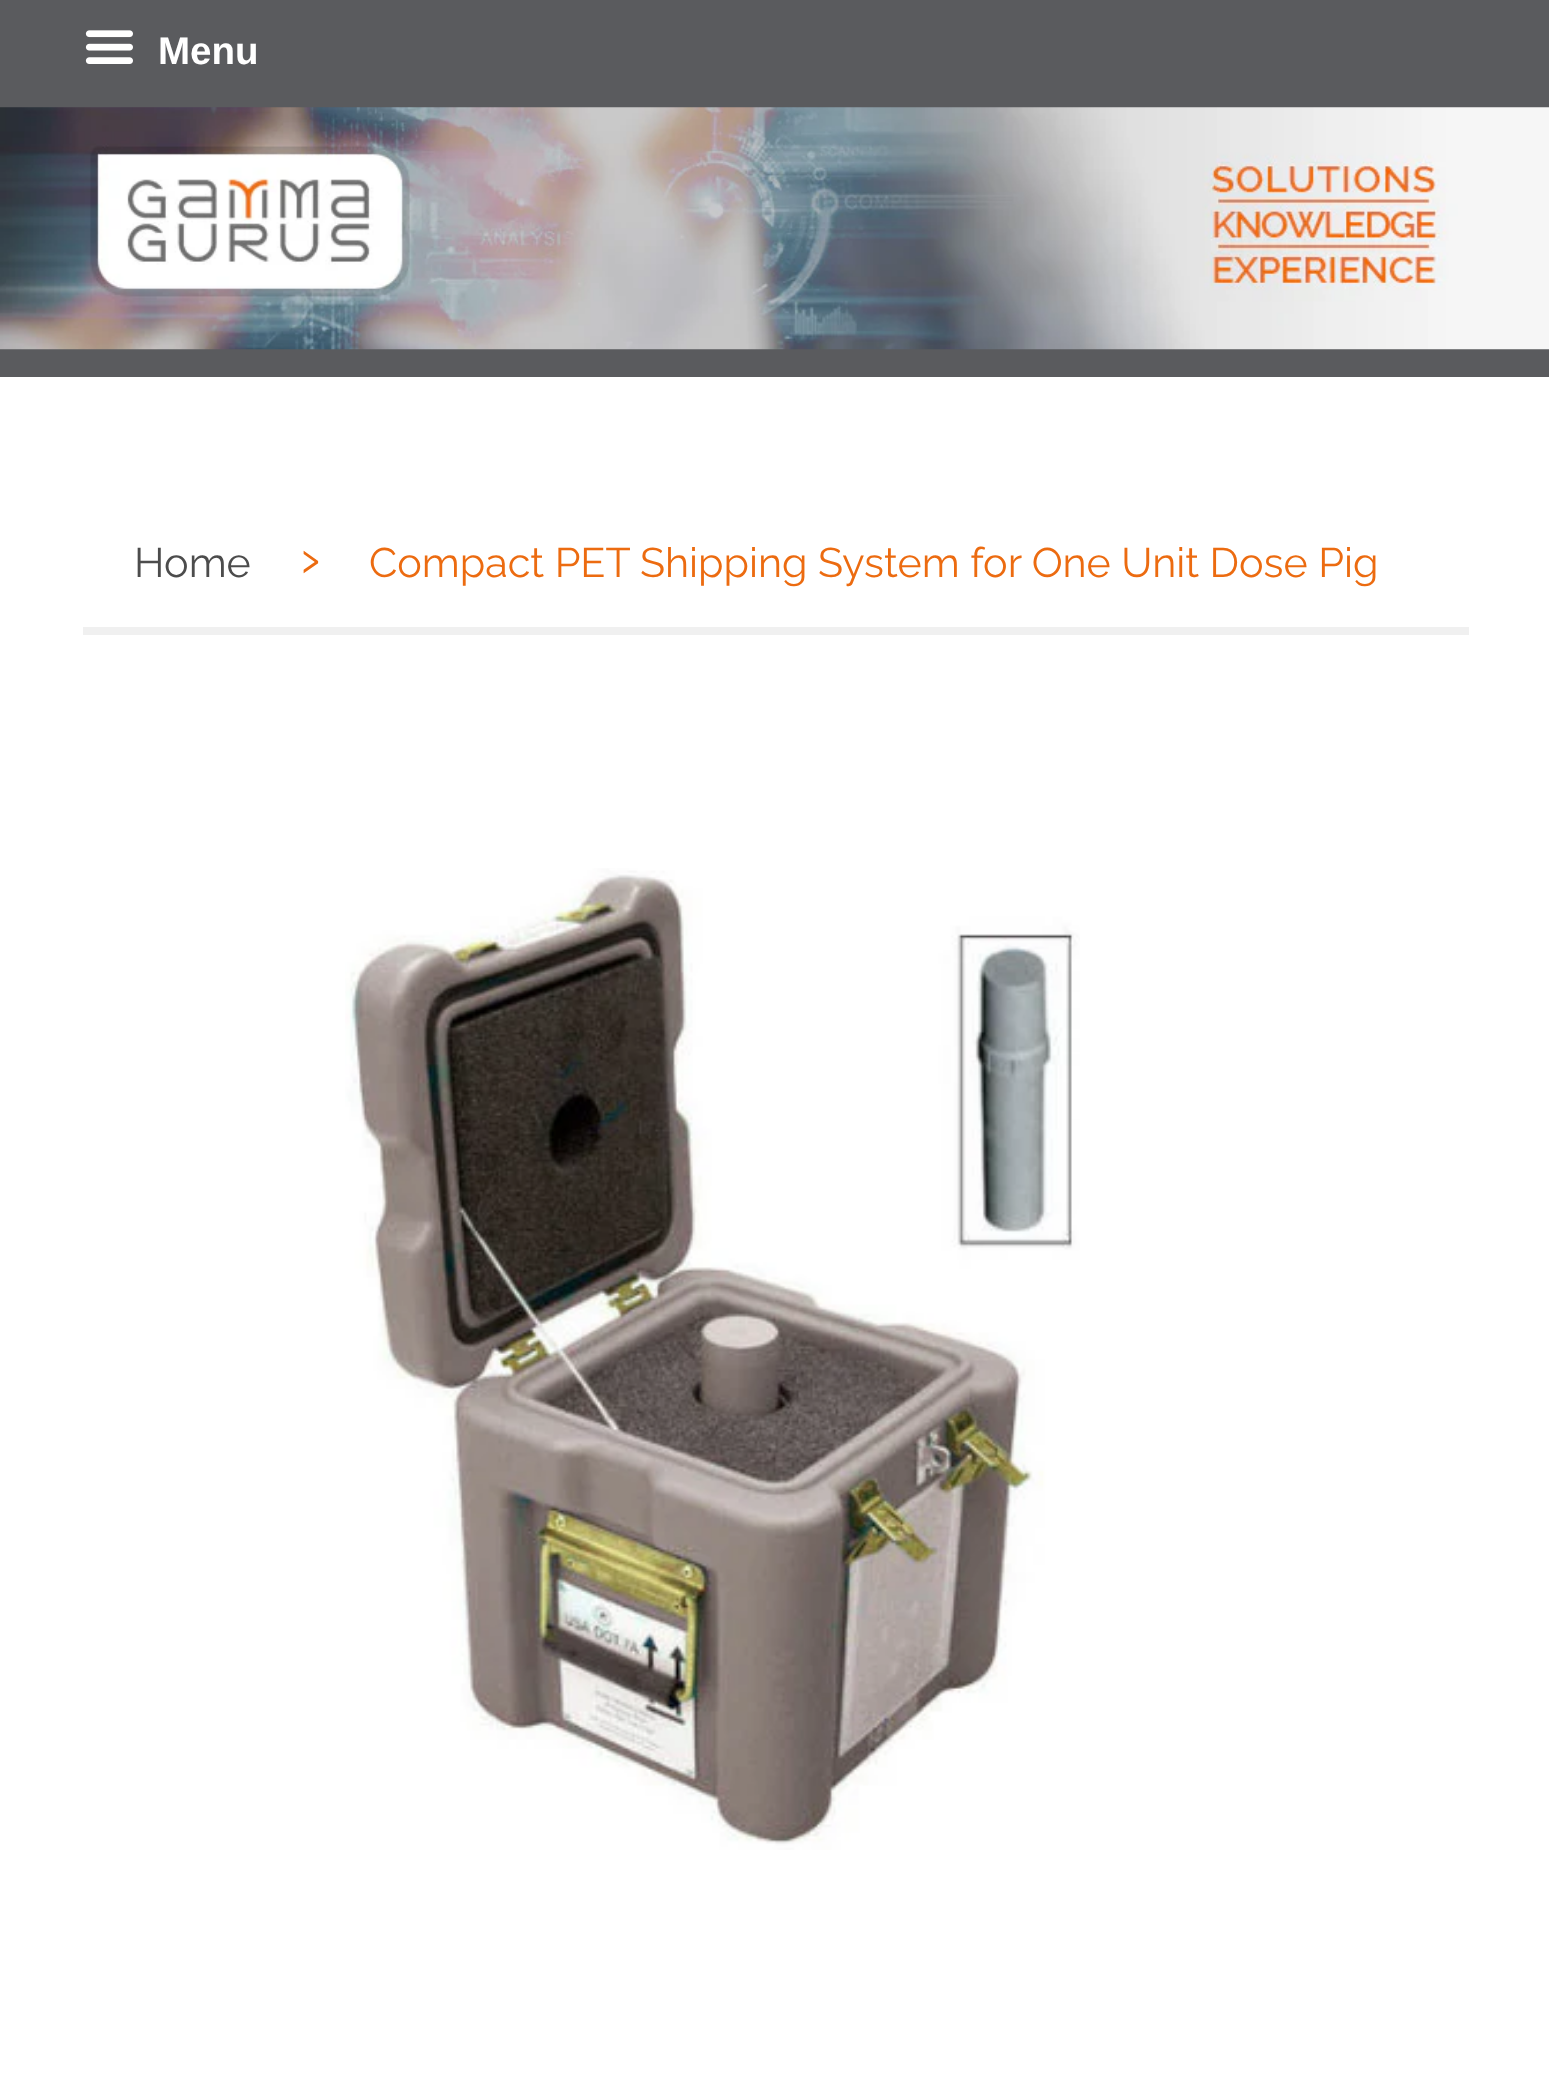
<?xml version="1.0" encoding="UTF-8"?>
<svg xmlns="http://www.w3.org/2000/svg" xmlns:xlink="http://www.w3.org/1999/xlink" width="1549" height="2083">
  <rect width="100%" height="100%" fill="#5a5b5e" />
  <image x="85" y="30" width="48" height="34" xlink:href="image1.png" />
  <image x="0" y="107" width="1549" height="243" xlink:href="image2.png" />
  <rect y="377" width="1549" height="1706" fill="#ffffff" />
  <rect x="83" y="627" width="1386" height="8" fill="#f0f0f0" />
  <image x="345" y="868" width="735" height="982" xlink:href="image3.png" />
  <text x="158" y="64" style="font-family: Liberation Sans; font-size: 38.5px; font-weight: bold; fill: #ffffff">Menu</text>
  <text x="134" y="577" style="font-family: Raleway; font-size: 41.25px; fill: #4c4c4c">Home</text>
  <text x="300" y="577" style="font-family: Raleway; font-size: 58px; fill: #ec6b10">›</text>
  <text x="369" y="577" style="font-family: Raleway; font-size: 41.25px; fill: #ec6b10">Compact PET Shipping System for One Unit Dose Pig</text>
</svg>
